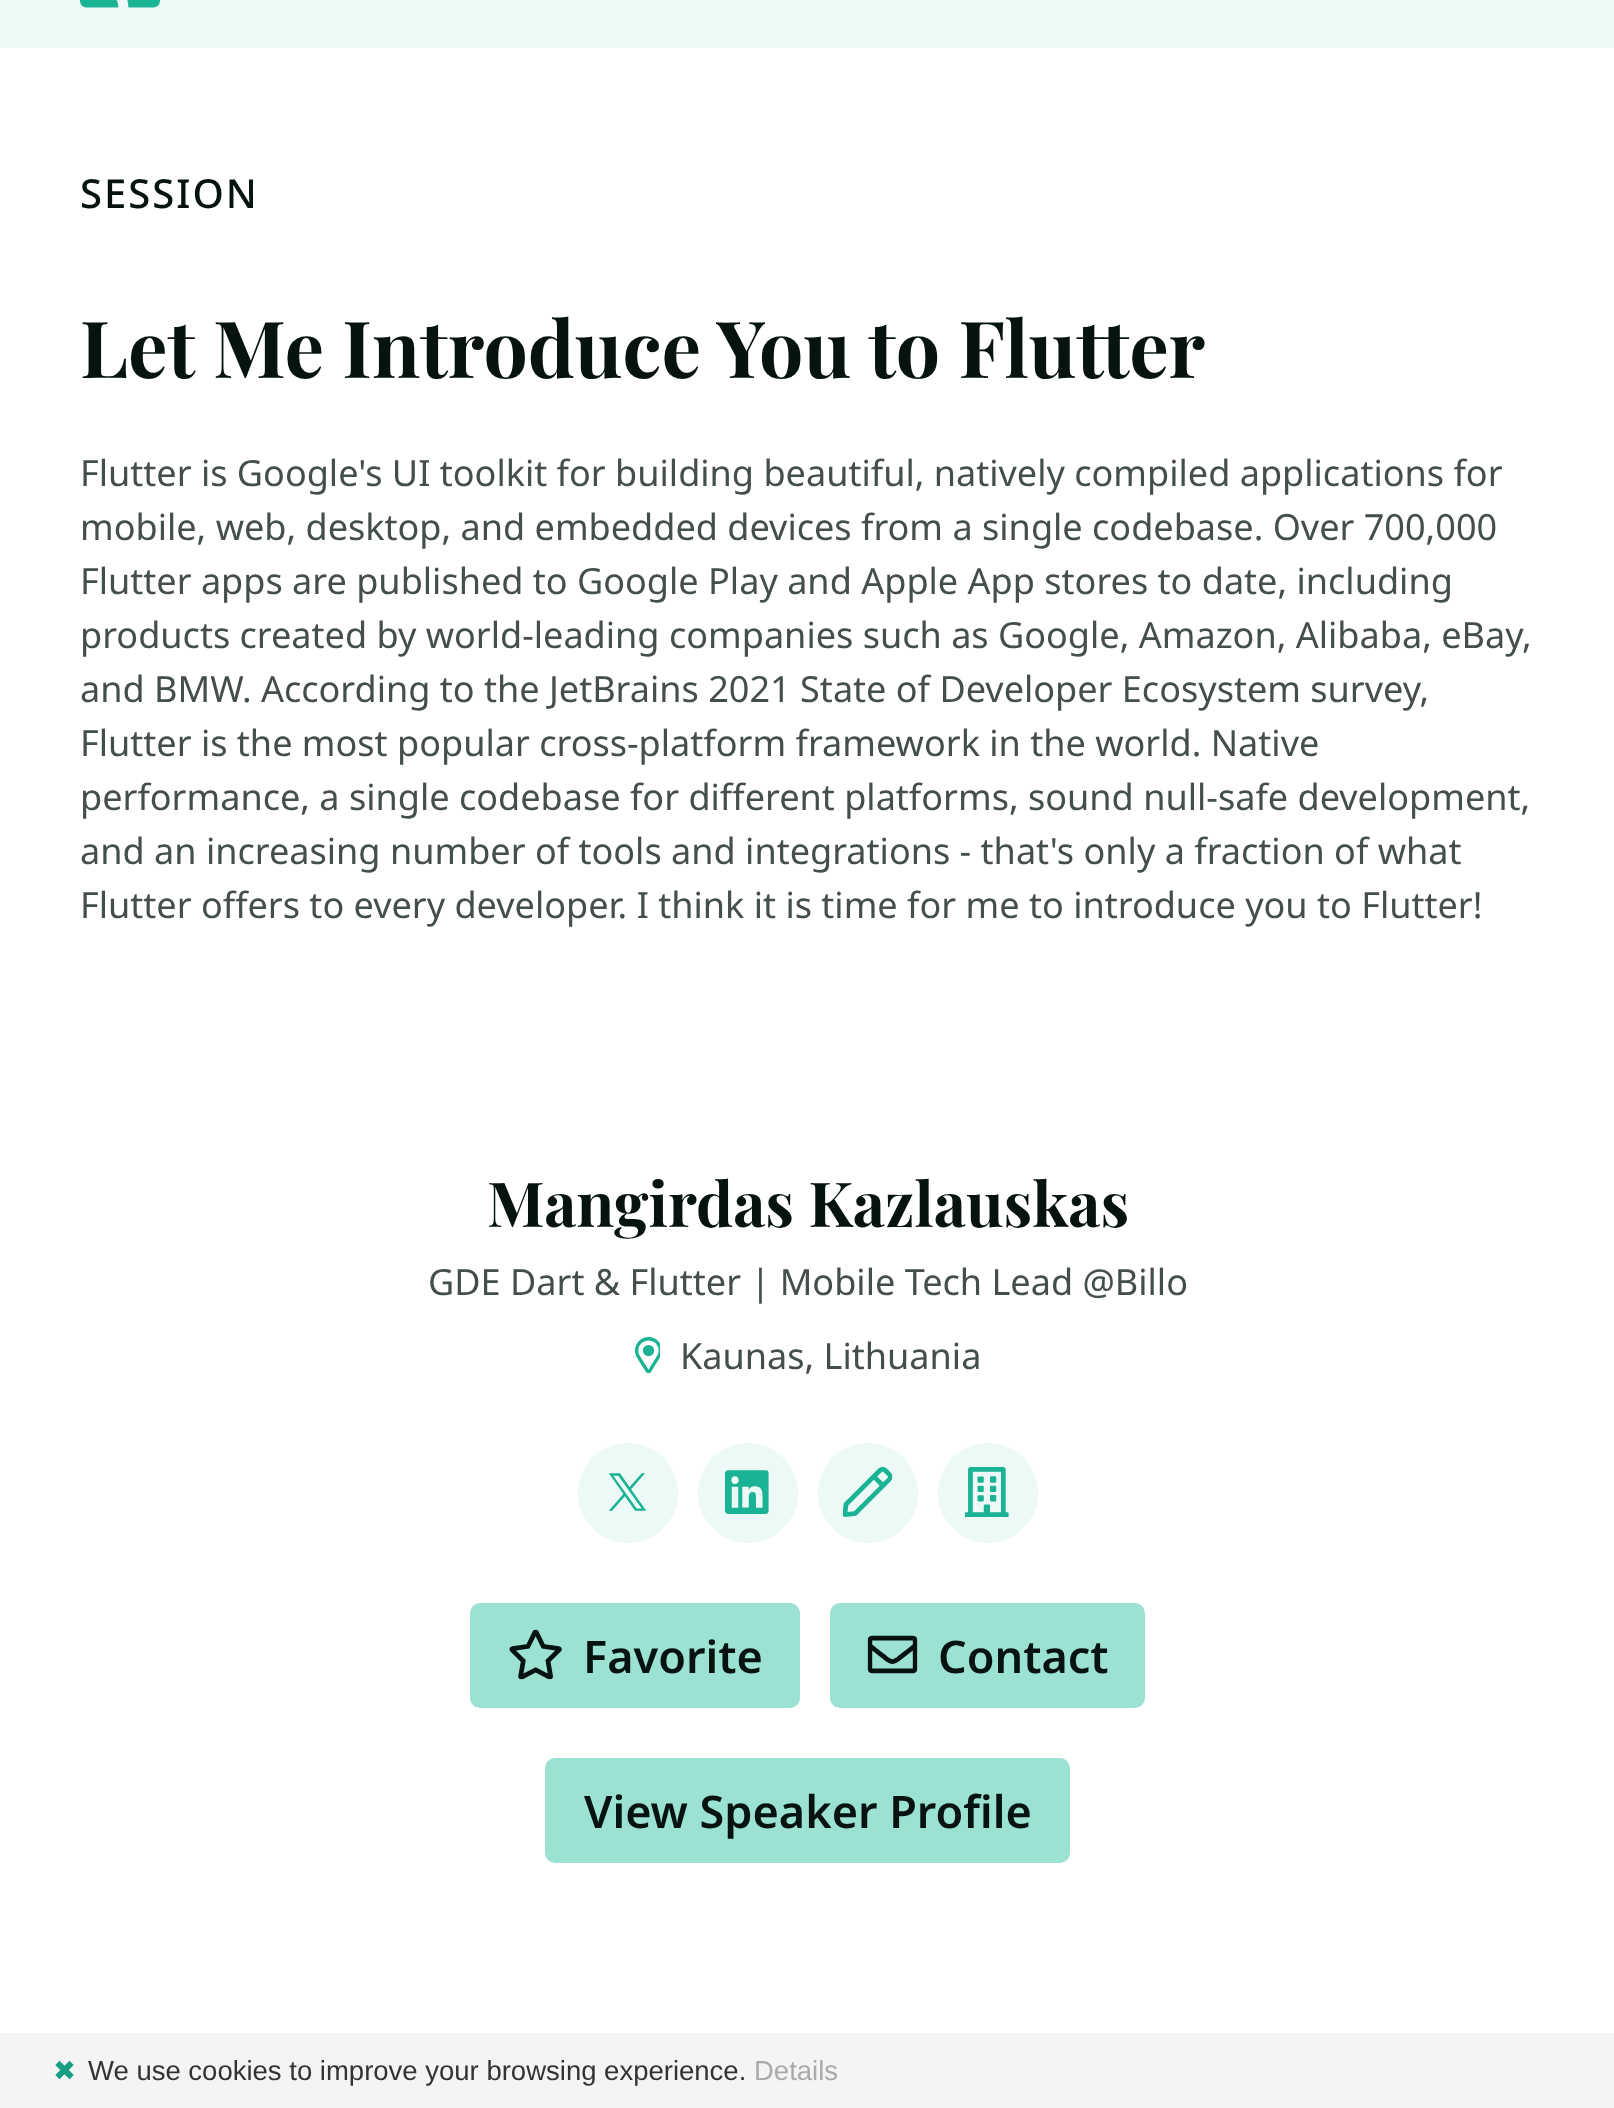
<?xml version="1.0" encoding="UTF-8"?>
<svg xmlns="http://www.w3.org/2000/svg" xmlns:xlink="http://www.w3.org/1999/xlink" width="1614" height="2108">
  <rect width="100%" height="100%" fill="#ffffff" />
  <rect width="1614" height="48" fill="#ecf9f6" />
  <image x="80" y="0" width="80" height="8" xlink:href="image1.png" />
  <image x="635" y="1337" width="25" height="36" xlink:href="image2.png" />
  <circle cx="628" cy="1493" r="50" fill="#ecf9f6" />
  <image x="608" y="1473" width="39" height="38" xlink:href="image3.png" />
  <circle cx="748" cy="1493" r="50" fill="#ecf9f6" />
  <image x="725" y="1470" width="44" height="44" xlink:href="image4.png" />
  <circle cx="868" cy="1493" r="50" fill="#ecf9f6" />
  <image x="842" y="1467" width="51" height="50" xlink:href="image5.png" />
  <circle cx="988" cy="1493" r="50" fill="#ecf9f6" />
  <image x="965" y="1467" width="44" height="50" xlink:href="image6.png" />
  <rect x="470" y="1603" width="330" height="105" rx="10" fill="#9ce2d3" />
  <image x="509" y="1629" width="53" height="51" xlink:href="image7.png" />
  <rect x="830" y="1603" width="315" height="105" rx="10" fill="#9ce2d3" />
  <image x="867" y="1635" width="51" height="39" xlink:href="image8.png" />
  <rect x="545" y="1758" width="525" height="105" rx="10" fill="#9ce2d3" />
  <rect y="2033" width="1614" height="75" fill="#f4f4f4" />
  <text x="80" y="208" style="font-family: Noto Sans; font-size: 40px; font-weight: 500; letter-spacing: 2px; fill: #061311">SESSION</text>
  <text x="80" y="378" style="font-family: Playfair Display; font-size: 78.6px; font-weight: bold; fill: #061311">Let Me Introduce You to Flutter</text>
  <text x="80" y="486" style="font-family: Noto Sans; font-size: 36.05px; fill: #444e4d">Flutter is Google's UI toolkit for building beautiful, natively compiled applications for</text>
  <text x="80" y="540" style="font-family: Noto Sans; font-size: 36.05px; fill: #444e4d">mobile, web, desktop, and embedded devices from a single codebase. Over 700,000</text>
  <text x="80" y="594" style="font-family: Noto Sans; font-size: 36.05px; fill: #444e4d">Flutter apps are published to Google Play and Apple App stores to date, including</text>
  <text x="80" y="648" style="font-family: Noto Sans; font-size: 36.05px; fill: #444e4d">products created by world-leading companies such as Google, Amazon, Alibaba, eBay,</text>
  <text x="80" y="702" style="font-family: Noto Sans; font-size: 36.05px; fill: #444e4d">and BMW. According to the JetBrains 2021 State of Developer Ecosystem survey,</text>
  <text x="80" y="756" style="font-family: Noto Sans; font-size: 36.05px; fill: #444e4d">Flutter is the most popular cross-platform framework in the world. Native</text>
  <text x="80" y="810" style="font-family: Noto Sans; font-size: 36.05px; fill: #444e4d">performance, a single codebase for different platforms, sound null-safe development,</text>
  <text x="80" y="864" style="font-family: Noto Sans; font-size: 36.05px; fill: #444e4d">and an increasing number of tools and integrations - that's only a fraction of what</text>
  <text x="80" y="918" style="font-family: Noto Sans; font-size: 36.05px; fill: #444e4d">Flutter offers to every developer. I think it is time for me to introduce you to Flutter!</text>
  <text x="487" y="1227" style="font-family: Playfair Display; font-size: 62.1px; font-weight: bold; fill: #061311">Mangirdas Kazlauskas</text>
  <text x="428" y="1295" style="font-family: Noto Sans; font-size: 36.05px; fill: #444e4d">GDE Dart &amp; Flutter | Mobile Tech Lead @Billo</text>
  <text x="680" y="1369" style="font-family: Noto Sans; font-size: 36.05px; fill: #444e4d">Kaunas, Lithuania</text>
  <text x="583" y="1673" style="font-family: Noto Sans; font-size: 45px; font-weight: 600; fill: #061311">Favorite</text>
  <text x="938" y="1673" style="font-family: Noto Sans; font-size: 45px; font-weight: 600; fill: #061311">Contact</text>
  <text x="584" y="1828" style="font-family: Noto Sans; font-size: 45px; font-weight: 600; fill: #061311">View Speaker Profile</text>
  <text x="53" y="2080" style="font-family: DejaVu Sans; font-size: 27.5px; fill: #179d82">✖</text>
  <text x="88" y="2080" style="font-family: Liberation Sans; font-size: 27.5px; fill: #333333">We use cookies to improve your browsing experience.</text>
  <text x="754" y="2080" style="font-family: Liberation Sans; font-size: 27.5px; fill: #aaaaaa">Details</text>
</svg>
